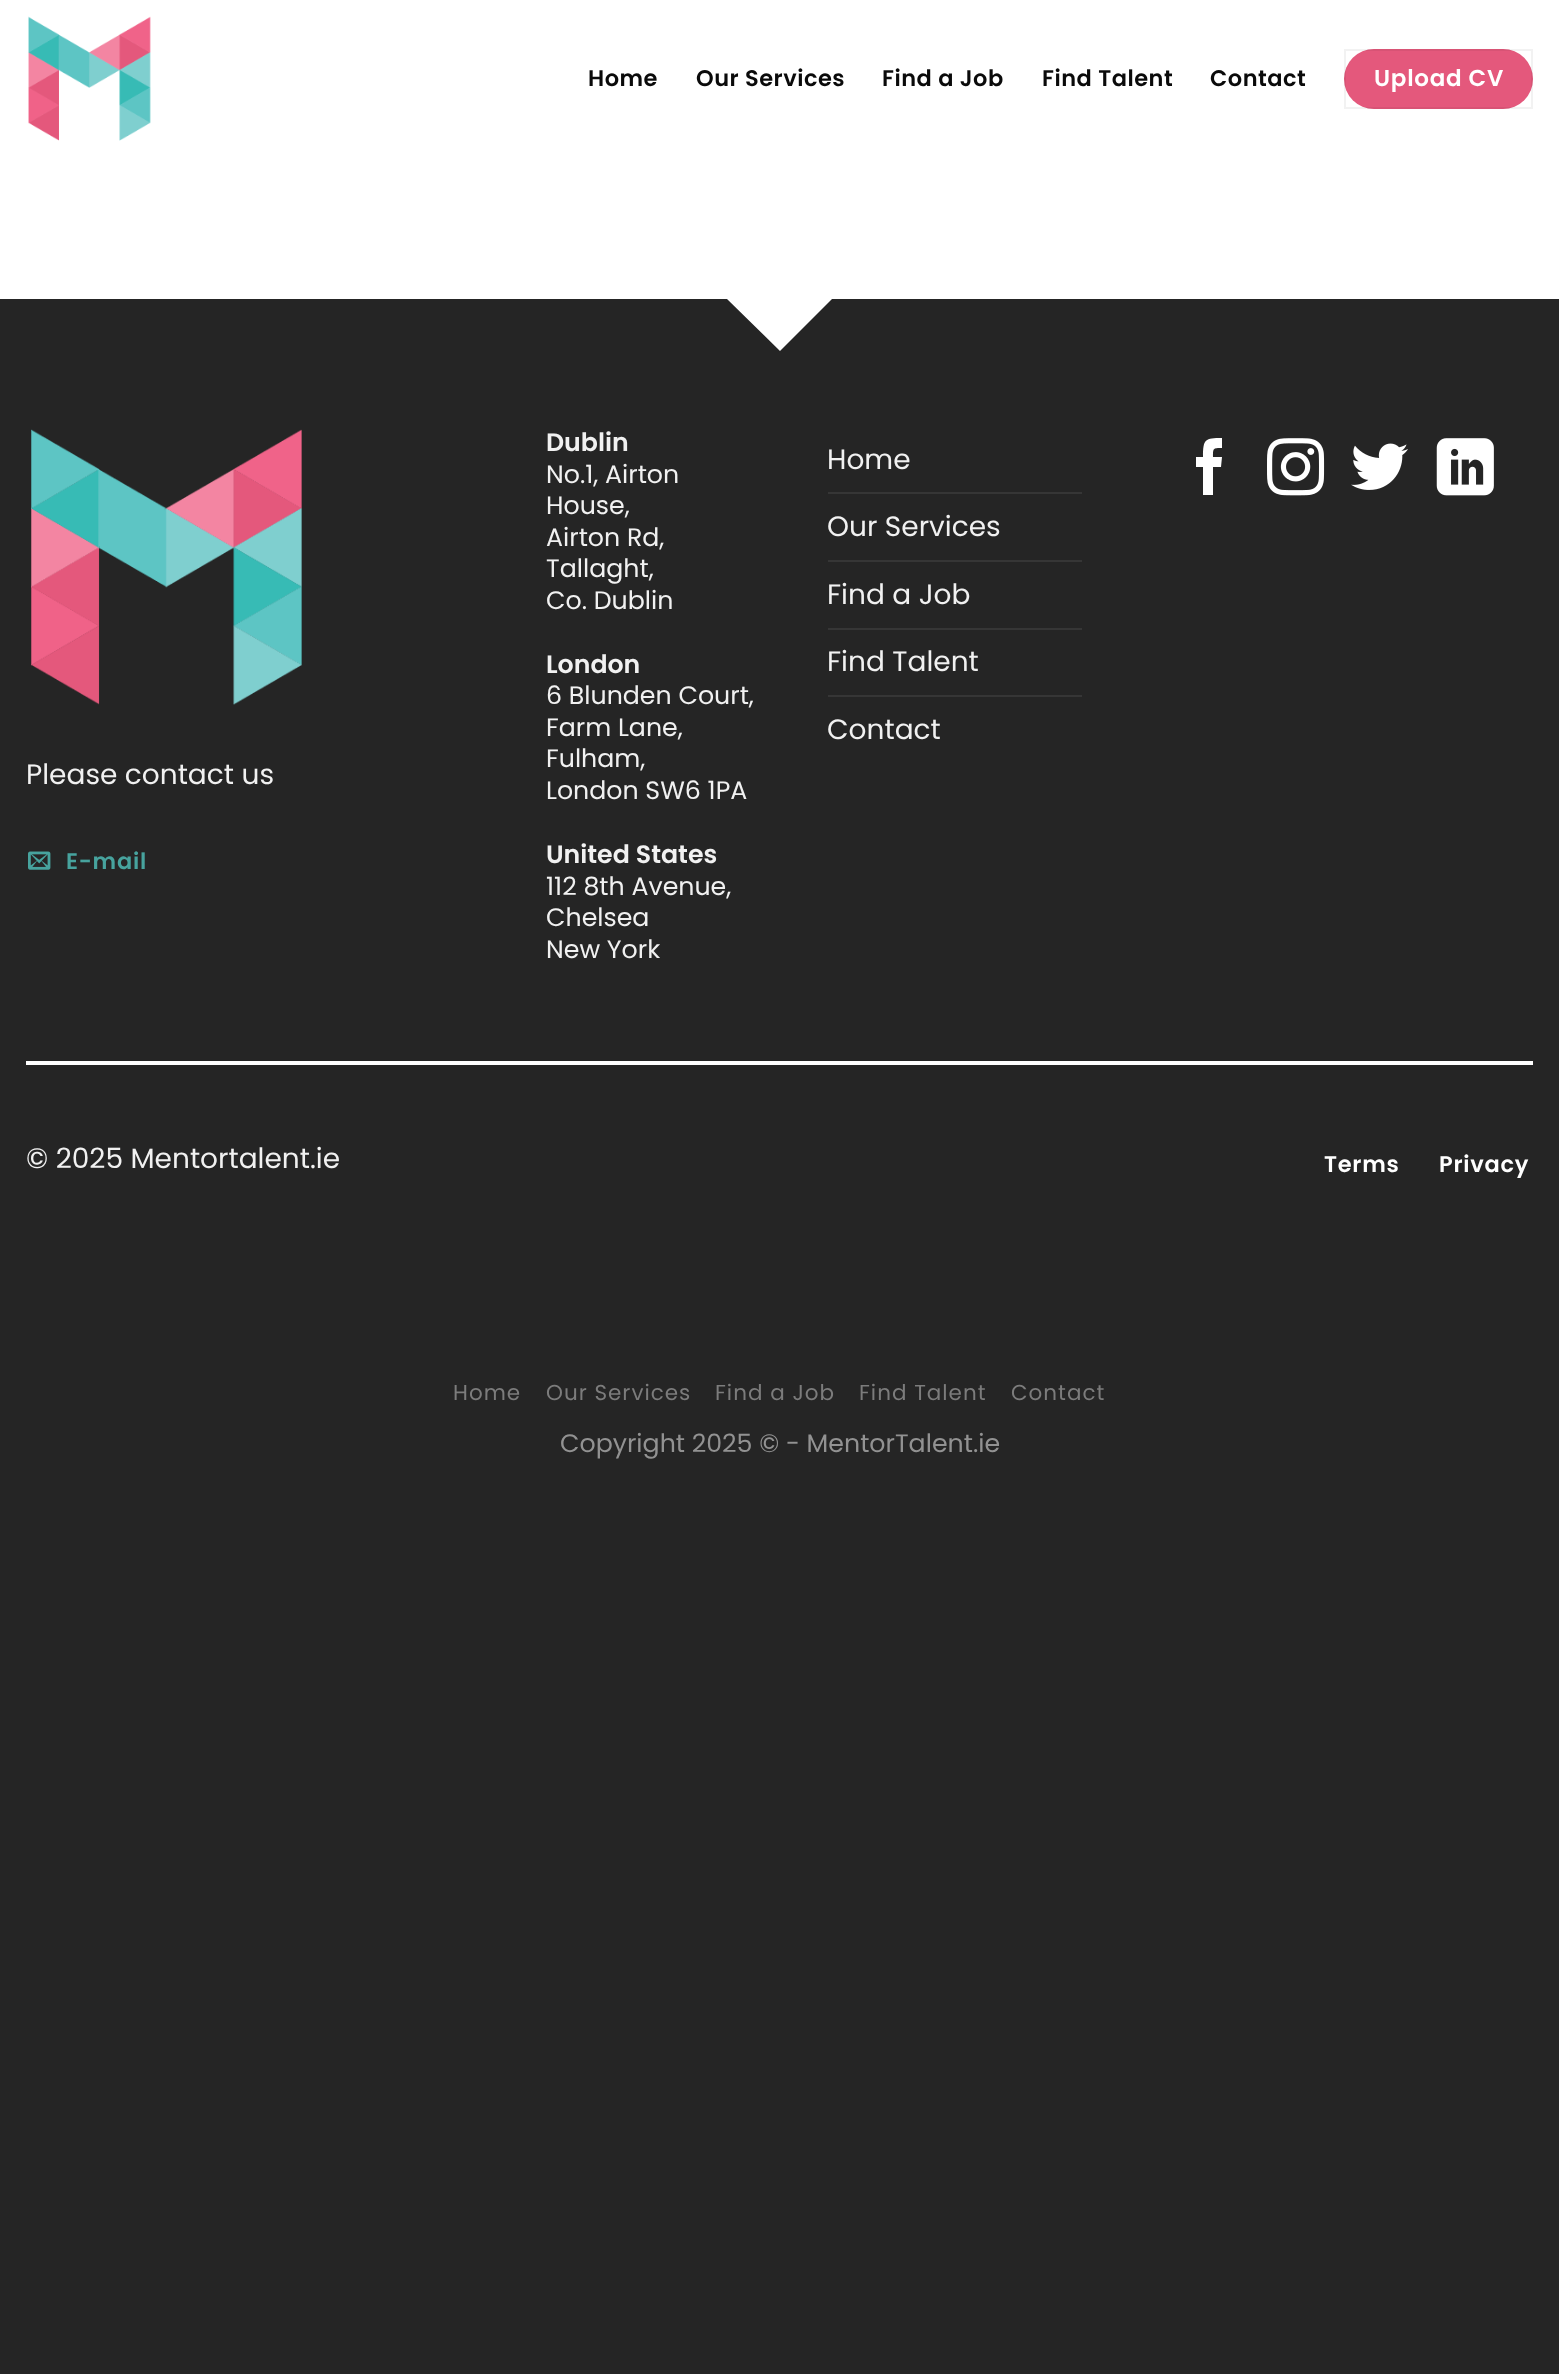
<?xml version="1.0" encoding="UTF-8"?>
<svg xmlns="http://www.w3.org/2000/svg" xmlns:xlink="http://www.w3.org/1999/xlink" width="1559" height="2374">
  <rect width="100%" height="100%" fill="#252525" />
  <rect width="1559" height="351" fill="#ffffff" />
  <image x="28" y="16" width="123" height="125" xlink:href="image1.png" />
  <rect x="1344" y="49" width="189" height="60" rx="30" fill="#e4587c" />
  <rect x="1345" y="50" width="187" height="58" fill="none" stroke="#000000" stroke-opacity="0.05" stroke-width="2" />
  <path d="M 0 299 v 1047 h 1559 v -1047 h -727 l -52 52 l -53 -52 z" fill="#252525" />
  <image x="31" y="429" width="271" height="276" xlink:href="image2.png" />
  <image x="28" y="851" width="23" height="19" xlink:href="image3.png" />
  <rect x="828" y="492" width="254" height="2" fill="#363636" />
  <rect x="828" y="560" width="254" height="2" fill="#363636" />
  <rect x="828" y="628" width="254" height="2" fill="#363636" />
  <rect x="828" y="695" width="254" height="2" fill="#363636" />
  <path d="M 1213 495 h -10 v -28 h -7 v -10 h 7 c 0 -18 2 -19 19 -19 v 10 c -9 0 -9 0 -9 9 h 9 l -1 10 h -8 z" fill="#ffffff" />
  <image x="1267" y="438" width="58" height="58" xlink:href="image4.png" />
  <image x="1351" y="443" width="57" height="47" xlink:href="image5.png" />
  <image x="1436" y="438" width="58" height="58" xlink:href="image6.png" />
  <rect x="26" y="1061" width="1507" height="4" fill="#ffffff" />
  <text x="588" y="86" style="font-family: Poppins; font-size: 22.5px; font-weight: 600; letter-spacing: 0.5px; fill: #0a0a0a">Home</text>
  <text x="696" y="86" style="font-family: Poppins; font-size: 22.5px; font-weight: 600; letter-spacing: 0.5px; fill: #0a0a0a">Our Services</text>
  <text x="882" y="86" style="font-family: Poppins; font-size: 22.5px; font-weight: 600; letter-spacing: 0.5px; fill: #0a0a0a">Find a Job</text>
  <text x="1042" y="86" style="font-family: Poppins; font-size: 22.5px; font-weight: 600; letter-spacing: 0.5px; fill: #0a0a0a">Find Talent</text>
  <text x="1210" y="86" style="font-family: Poppins; font-size: 22.5px; font-weight: 600; letter-spacing: 0.5px; fill: #0a0a0a">Contact</text>
  <text x="1374" y="86" style="font-family: Poppins; font-size: 23px; font-weight: 600; letter-spacing: 0.75px; fill: #ffffff">Upload CV</text>
  <text x="26" y="784" style="font-family: Poppins; font-size: 28px; fill: #f1f1f1">Please contact us</text>
  <text x="66" y="869" style="font-family: Poppins; font-size: 22.5px; font-weight: 600; letter-spacing: 0.75px; fill: #47a39e">E-mail</text>
  <text x="546" y="451" style="font-family: Poppins; font-size: 25.25px; font-weight: 600; fill: #f1f1f1">Dublin</text>
  <text x="546" y="483" style="font-family: Poppins; font-size: 25.25px; fill: #f1f1f1">No.1, Airton</text>
  <text x="546" y="514" style="font-family: Poppins; font-size: 25.25px; fill: #f1f1f1">House,</text>
  <text x="546" y="546" style="font-family: Poppins; font-size: 25.25px; fill: #f1f1f1">Airton Rd,</text>
  <text x="546" y="577" style="font-family: Poppins; font-size: 25.25px; fill: #f1f1f1">Tallaght,</text>
  <text x="546" y="609" style="font-family: Poppins; font-size: 25.25px; fill: #f1f1f1">Co. Dublin</text>
  <text x="546" y="673" style="font-family: Poppins; font-size: 25.25px; font-weight: 600; fill: #f1f1f1">London</text>
  <text x="546" y="704" style="font-family: Poppins; font-size: 25.25px; fill: #f1f1f1">6 Blunden Court,</text>
  <text x="546" y="736" style="font-family: Poppins; font-size: 25.25px; fill: #f1f1f1">Farm Lane,</text>
  <text x="546" y="767" style="font-family: Poppins; font-size: 25.25px; fill: #f1f1f1">Fulham,</text>
  <text x="546" y="799" style="font-family: Poppins; font-size: 25.25px; fill: #f1f1f1">London SW6 1PA</text>
  <text x="546" y="863" style="font-family: Poppins; font-size: 25.25px; font-weight: 600; fill: #f1f1f1">United States</text>
  <text x="546" y="895" style="font-family: Poppins; font-size: 25.25px; fill: #f1f1f1">112 8th Avenue,</text>
  <text x="546" y="926" style="font-family: Poppins; font-size: 25.25px; fill: #f1f1f1">Chelsea</text>
  <text x="546" y="958" style="font-family: Poppins; font-size: 25.25px; fill: #f1f1f1">New York</text>
  <text x="827" y="469" style="font-family: Poppins; font-size: 28px; fill: #f1f1f1">Home</text>
  <text x="827" y="536" style="font-family: Poppins; font-size: 28px; fill: #f1f1f1">Our Services</text>
  <text x="827" y="604" style="font-family: Poppins; font-size: 28px; fill: #f1f1f1">Find a Job</text>
  <text x="827" y="671" style="font-family: Poppins; font-size: 28px; fill: #f1f1f1">Find Talent</text>
  <text x="827" y="739" style="font-family: Poppins; font-size: 28px; fill: #f1f1f1">Contact</text>
  <text x="26" y="1168" style="font-family: Poppins; font-size: 28px; fill: #f1f1f1">© 2025 Mentortalent.ie</text>
  <text x="1324" y="1172" style="font-family: Poppins; font-size: 22.5px; font-weight: 600; letter-spacing: 0.75px; fill: #ffffff">Terms</text>
  <text x="1439" y="1172" style="font-family: Poppins; font-size: 22.5px; font-weight: 600; letter-spacing: 0.75px; fill: #ffffff">Privacy</text>
  <text x="453" y="1400" style="font-family: Poppins; font-size: 21.5px; letter-spacing: 1px; fill: #7c7c7c">Home</text>
  <text x="546" y="1400" style="font-family: Poppins; font-size: 21.5px; letter-spacing: 1px; fill: #7c7c7c">Our Services</text>
  <text x="715" y="1400" style="font-family: Poppins; font-size: 21.5px; letter-spacing: 1px; fill: #7c7c7c">Find a Job</text>
  <text x="859" y="1400" style="font-family: Poppins; font-size: 21.5px; letter-spacing: 1px; fill: #7c7c7c">Find Talent</text>
  <text x="1011" y="1400" style="font-family: Poppins; font-size: 21.5px; letter-spacing: 1px; fill: #7c7c7c">Contact</text>
  <text x="560" y="1452" style="font-family: Poppins; font-size: 25.25px; fill: #929292">Copyright 2025 © - MentorTalent.ie</text>
</svg>
